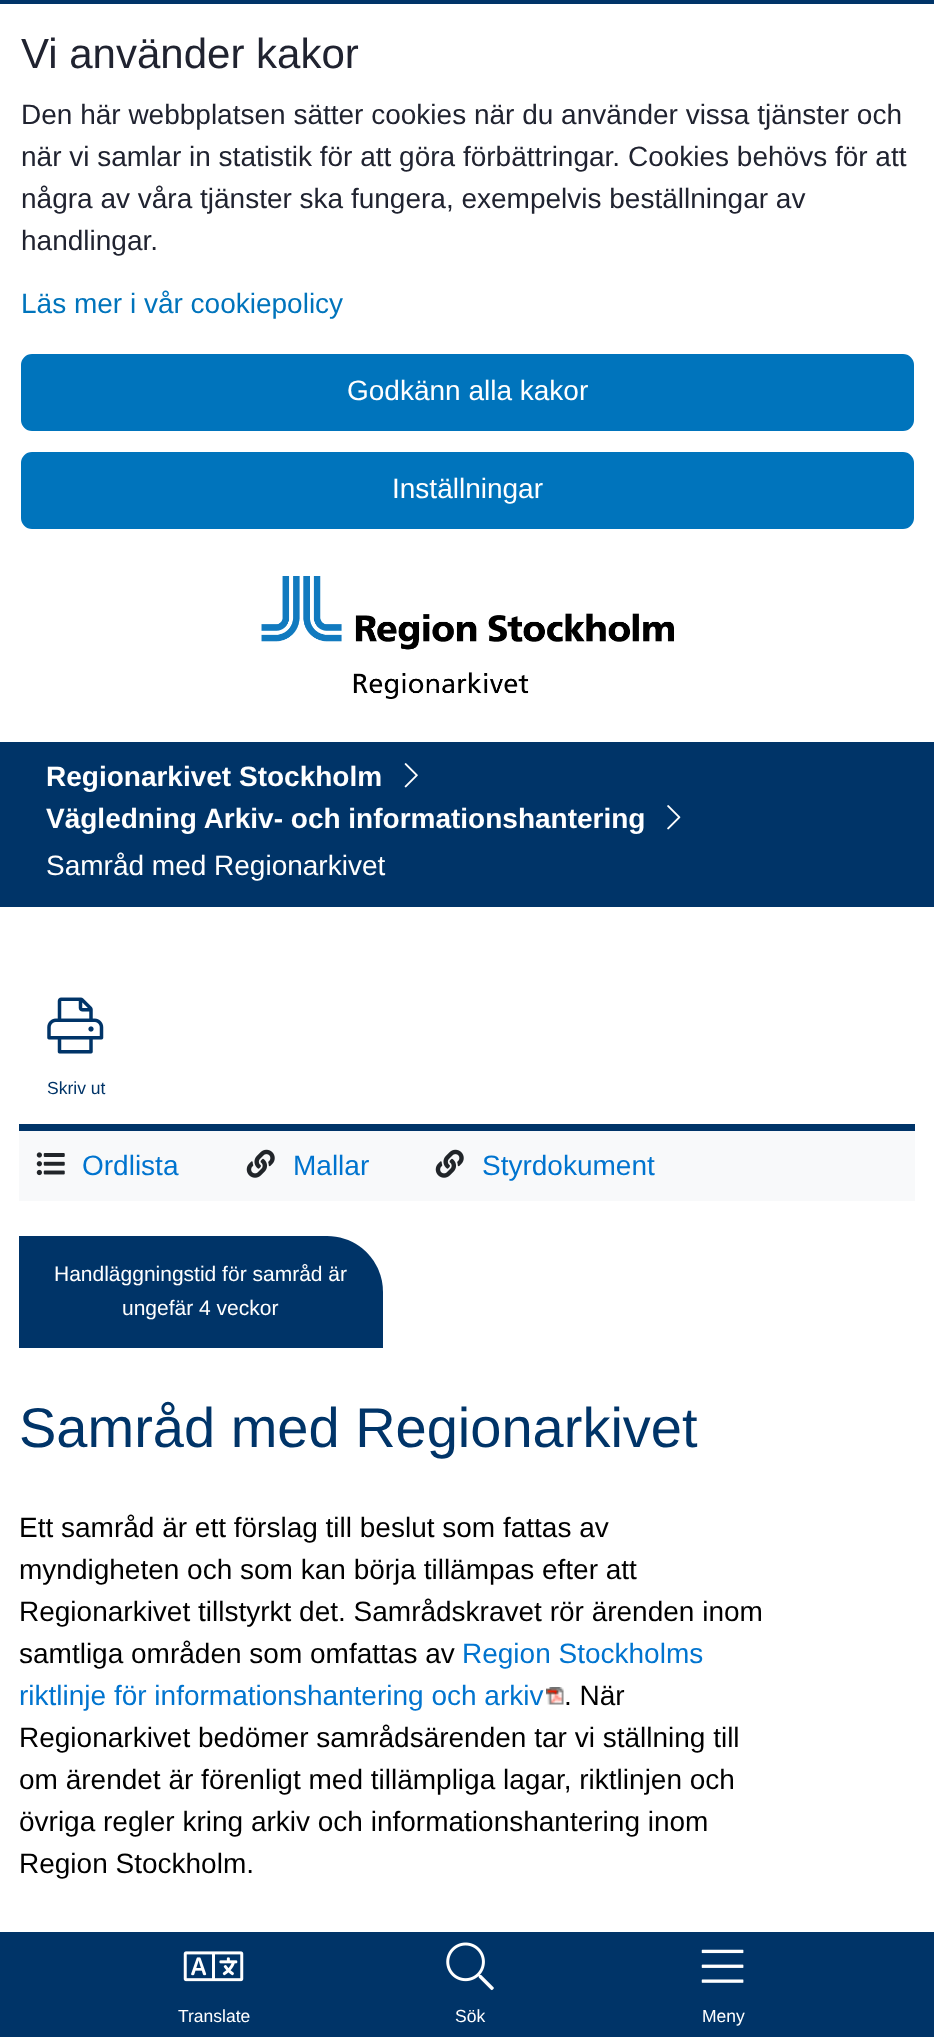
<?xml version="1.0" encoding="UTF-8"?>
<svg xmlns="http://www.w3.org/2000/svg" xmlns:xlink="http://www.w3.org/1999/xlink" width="934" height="2037">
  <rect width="100%" height="100%" fill="#ffffff" />
  <rect width="934" height="4" fill="#003468" />
  <rect x="22" y="355" width="891" height="75" rx="10" fill="#0074bc" stroke="#0074bc" stroke-width="2" />
  <rect x="22" y="453" width="891" height="75" rx="10" fill="#0074bc" stroke="#0074bc" stroke-width="2" />
  <rect y="742" width="934" height="165" fill="#003468" />
  <image x="404" y="763" width="14" height="25" xlink:href="image1.png" />
  <image x="667" y="805" width="14" height="25" xlink:href="image2.png" />
  <image x="47" y="997" width="57" height="57" xlink:href="image3.png" />
  <rect x="19" y="1131" width="896" height="70" fill="#f8f9fa" />
  <rect x="19" y="1124" width="896" height="7" fill="#003468" />
  <image x="36" y="1152" width="29" height="24" xlink:href="image4.png" />
  <image x="246" y="1149" width="29" height="29" xlink:href="image5.png" />
  <image x="435" y="1149" width="29" height="29" xlink:href="image5.png" />
  <path d="M 19 1236 h 308 c 31 0 56 25 56 56 v 56 h -364 z" fill="#003468" />
  <image x="546" y="1687" width="18" height="18" xlink:href="image6.png" />
  <image x="261" y="576" width="413" height="123" xlink:href="image7.png" />
  <rect y="1932" width="934" height="105" fill="#003468" />
  <image x="183" y="1951" width="61" height="31" xlink:href="image8.png" />
  <image x="446" y="1942" width="48" height="49" xlink:href="image9.png" />
  <image x="701" y="1949" width="43" height="34" xlink:href="image10.png" />
  <text x="21" y="68" style="font-family: Liberation Sans; font-size: 42px; fill: #202330">Vi använder kakor</text>
  <text x="21" y="124" style="font-family: Liberation Sans; font-size: 28px; fill: #202330">Den här webbplatsen sätter cookies när du använder vissa tjänster och</text>
  <text x="21" y="166" style="font-family: Liberation Sans; font-size: 28px; fill: #202330">när vi samlar in statistik för att göra förbättringar. Cookies behövs för att</text>
  <text x="21" y="208" style="font-family: Liberation Sans; font-size: 28px; fill: #202330">några av våra tjänster ska fungera, exempelvis beställningar av</text>
  <text x="21" y="250" style="font-family: Liberation Sans; font-size: 28px; fill: #202330">handlingar.</text>
  <text x="21" y="313" style="font-family: Liberation Sans; font-size: 28px; fill: #0074bc">Läs mer i vår cookiepolicy</text>
  <text x="347" y="400" style="font-family: Liberation Sans; font-size: 28px; fill: #ffffff">Godkänn alla kakor</text>
  <text x="392" y="498" style="font-family: Liberation Sans; font-size: 28px; fill: #ffffff">Inställningar</text>
  <text x="46" y="786" style="font-family: Liberation Sans; font-size: 28px; font-weight: bold; fill: #ffffff">Regionarkivet Stockholm</text>
  <text x="46" y="828" style="font-family: Liberation Sans; font-size: 28px; font-weight: bold; fill: #ffffff">Vägledning Arkiv- och informationshantering</text>
  <text x="46" y="875" style="font-family: Liberation Sans; font-size: 28px; fill: #ffffff">Samråd med Regionarkivet</text>
  <text x="47" y="1094" style="font-family: Liberation Sans; font-size: 17.5px; fill: #003468">Skriv ut</text>
  <text x="82" y="1175" style="font-family: Liberation Sans; font-size: 28px; fill: #0074cf">Ordlista</text>
  <text x="293" y="1175" style="font-family: Liberation Sans; font-size: 28px; fill: #0074cf">Mallar</text>
  <text x="482" y="1175" style="font-family: Liberation Sans; font-size: 28px; fill: #0074cf">Styrdokument</text>
  <text x="54" y="1281" style="font-family: Liberation Sans; font-size: 21px; fill: #ffffff">Handläggningstid för samråd är</text>
  <text x="122" y="1315" style="font-family: Liberation Sans; font-size: 21px; fill: #ffffff">ungefär 4 veckor</text>
  <text x="19" y="1447" style="font-family: Liberation Sans; font-size: 56px; fill: #003468">Samråd med Regionarkivet</text>
  <text x="19" y="1537" style="font-family: Liberation Sans; font-size: 28px; fill: #000000">Ett samråd är ett förslag till beslut som fattas av</text>
  <text x="19" y="1579" style="font-family: Liberation Sans; font-size: 28px; fill: #000000">myndigheten och som kan börja tillämpas efter att</text>
  <text x="19" y="1621" style="font-family: Liberation Sans; font-size: 28px; fill: #000000">Regionarkivet tillstyrkt det. Samrådskravet rör ärenden inom</text>
  <text x="19" y="1663" style="font-family: Liberation Sans; font-size: 28px; fill: #000000">samtliga områden som omfattas av</text>
  <text x="462" y="1663" style="font-family: Liberation Sans; font-size: 28px; fill: #0074cf">Region Stockholms</text>
  <text x="19" y="1705" style="font-family: Liberation Sans; font-size: 28px; fill: #0074cf">riktlinje för informationshantering och arkiv</text>
  <text x="564" y="1705" style="font-family: Liberation Sans; font-size: 28px; fill: #000000">. När</text>
  <text x="19" y="1747" style="font-family: Liberation Sans; font-size: 28px; fill: #000000">Regionarkivet bedömer samrådsärenden tar vi ställning till</text>
  <text x="19" y="1789" style="font-family: Liberation Sans; font-size: 28px; fill: #000000">om ärendet är förenligt med tillämpliga lagar, riktlinjen och</text>
  <text x="19" y="1831" style="font-family: Liberation Sans; font-size: 28px; fill: #000000">övriga regler kring arkiv och informationshantering inom</text>
  <text x="19" y="1873" style="font-family: Liberation Sans; font-size: 28px; fill: #000000">Region Stockholm.</text>
  <text x="178" y="2022" style="font-family: Liberation Sans; font-size: 17.5px; fill: #ffffff">Translate</text>
  <text x="455" y="2022" style="font-family: Liberation Sans; font-size: 17.5px; fill: #ffffff">Sök</text>
  <text x="702" y="2022" style="font-family: Liberation Sans; font-size: 17.5px; fill: #ffffff">Meny</text>
</svg>
